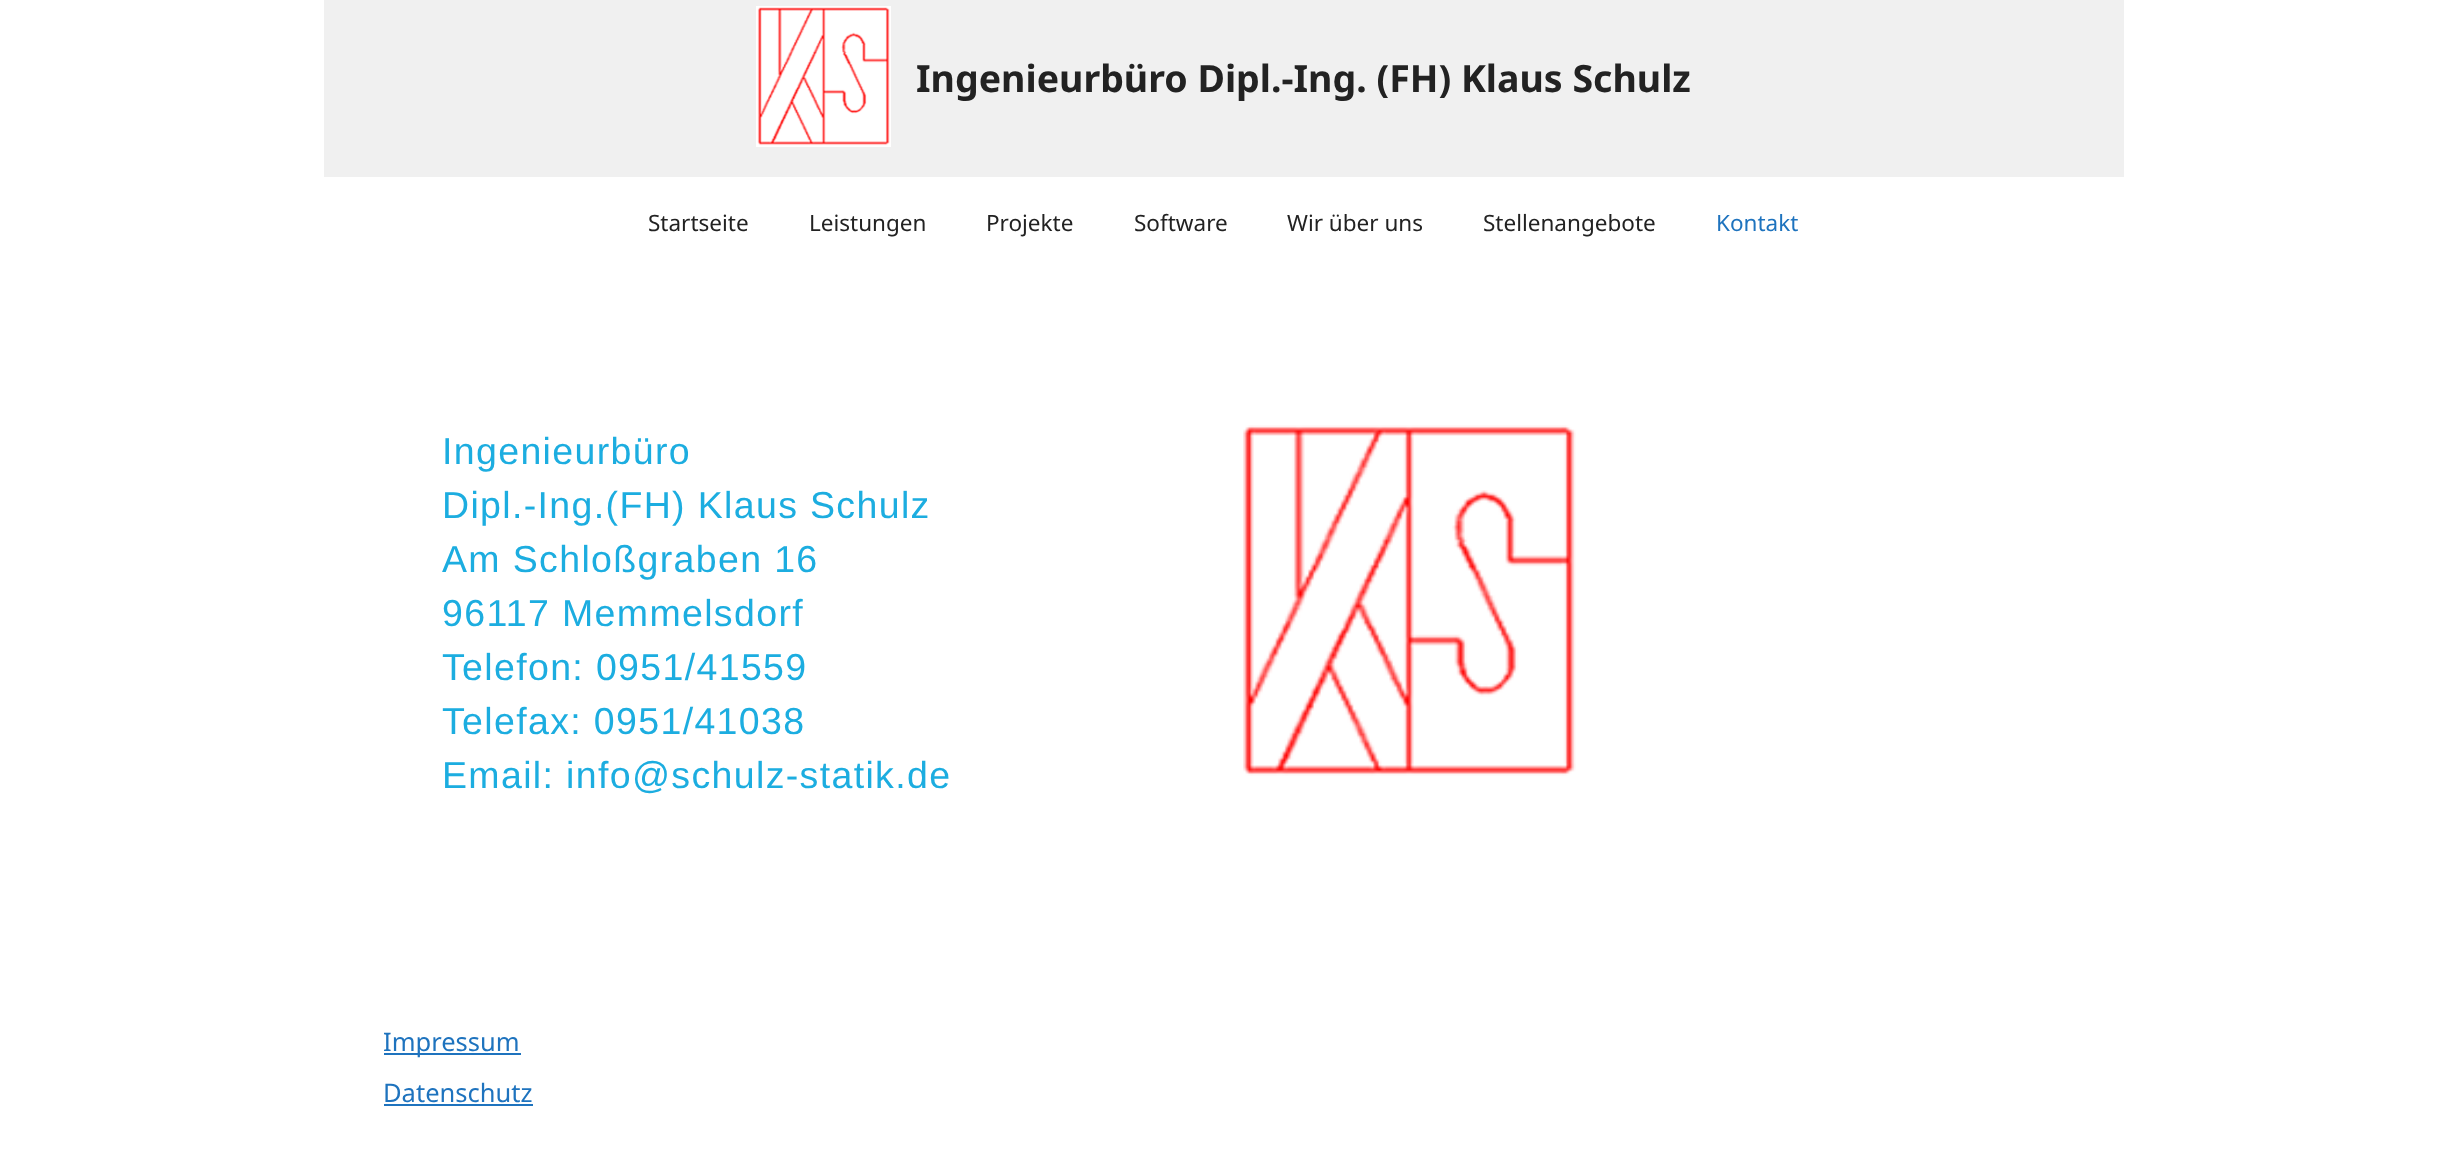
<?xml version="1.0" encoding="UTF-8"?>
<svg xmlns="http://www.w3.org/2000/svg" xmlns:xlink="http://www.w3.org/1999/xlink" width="2446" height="1161">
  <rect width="100%" height="100%" fill="#ffffff" />
  <rect x="324" width="1800" height="177" fill="#f0f0f0" />
  <image x="756" y="6" width="135" height="141" xlink:href="image1.png" />
  <image x="1243" y="425" width="333" height="351" xlink:href="image2.png" />
  <rect x="384" y="1053" width="137" height="2" fill="#1e73be" />
  <rect x="384" y="1104" width="149" height="2" fill="#1e73be" />
  <text x="916" y="92" style="font-family: Noto Sans; font-size: 37.5px; font-weight: bold; fill: #222222">Ingenieurbüro Dipl.-Ing. (FH) Klaus Schulz</text>
  <text x="648" y="231" style="font-family: Noto Sans; font-size: 22.5px; fill: #222222">Startseite</text>
  <text x="809" y="231" style="font-family: Noto Sans; font-size: 22.5px; fill: #222222">Leistungen</text>
  <text x="986" y="231" style="font-family: Noto Sans; font-size: 22.5px; fill: #222222">Projekte</text>
  <text x="1134" y="231" style="font-family: Noto Sans; font-size: 22.5px; fill: #222222">Software</text>
  <text x="1287" y="231" style="font-family: Noto Sans; font-size: 22.5px; fill: #222222">Wir über uns</text>
  <text x="1483" y="231" style="font-family: Noto Sans; font-size: 22.5px; fill: #222222">Stellenangebote</text>
  <text x="1716" y="231" style="font-family: Noto Sans; font-size: 22.5px; fill: #1e73be">Kontakt</text>
  <text x="442" y="464" style="font-family: Liberation Sans; font-size: 37.5px; letter-spacing: 1.35px; fill: #1cade0">Ingenieurbüro</text>
  <text x="442" y="518" style="font-family: Liberation Sans; font-size: 37.5px; letter-spacing: 1.35px; fill: #1cade0">Dipl.-Ing.(FH) Klaus Schulz</text>
  <text x="442" y="572" style="font-family: Liberation Sans; font-size: 37.5px; letter-spacing: 1.35px; fill: #1cade0">Am Schloßgraben 16</text>
  <text x="442" y="626" style="font-family: Liberation Sans; font-size: 37.5px; letter-spacing: 1.35px; fill: #1cade0">96117 Memmelsdorf</text>
  <text x="442" y="680" style="font-family: Liberation Sans; font-size: 37.5px; letter-spacing: 1.35px; fill: #1cade0">Telefon: 0951/41559</text>
  <text x="442" y="734" style="font-family: Liberation Sans; font-size: 37.5px; letter-spacing: 1.35px; fill: #1cade0">Telefax: 0951/41038</text>
  <text x="442" y="788" style="font-family: Liberation Sans; font-size: 37.5px; letter-spacing: 1.35px; fill: #1cade0">Email: info@schulz-statik.de</text>
  <text x="383" y="1051" style="font-family: Noto Sans; font-size: 25.5px; fill: #1e73be">Impressum</text>
  <text x="383" y="1102" style="font-family: Noto Sans; font-size: 25.5px; fill: #1e73be">Datenschutz</text>
</svg>
